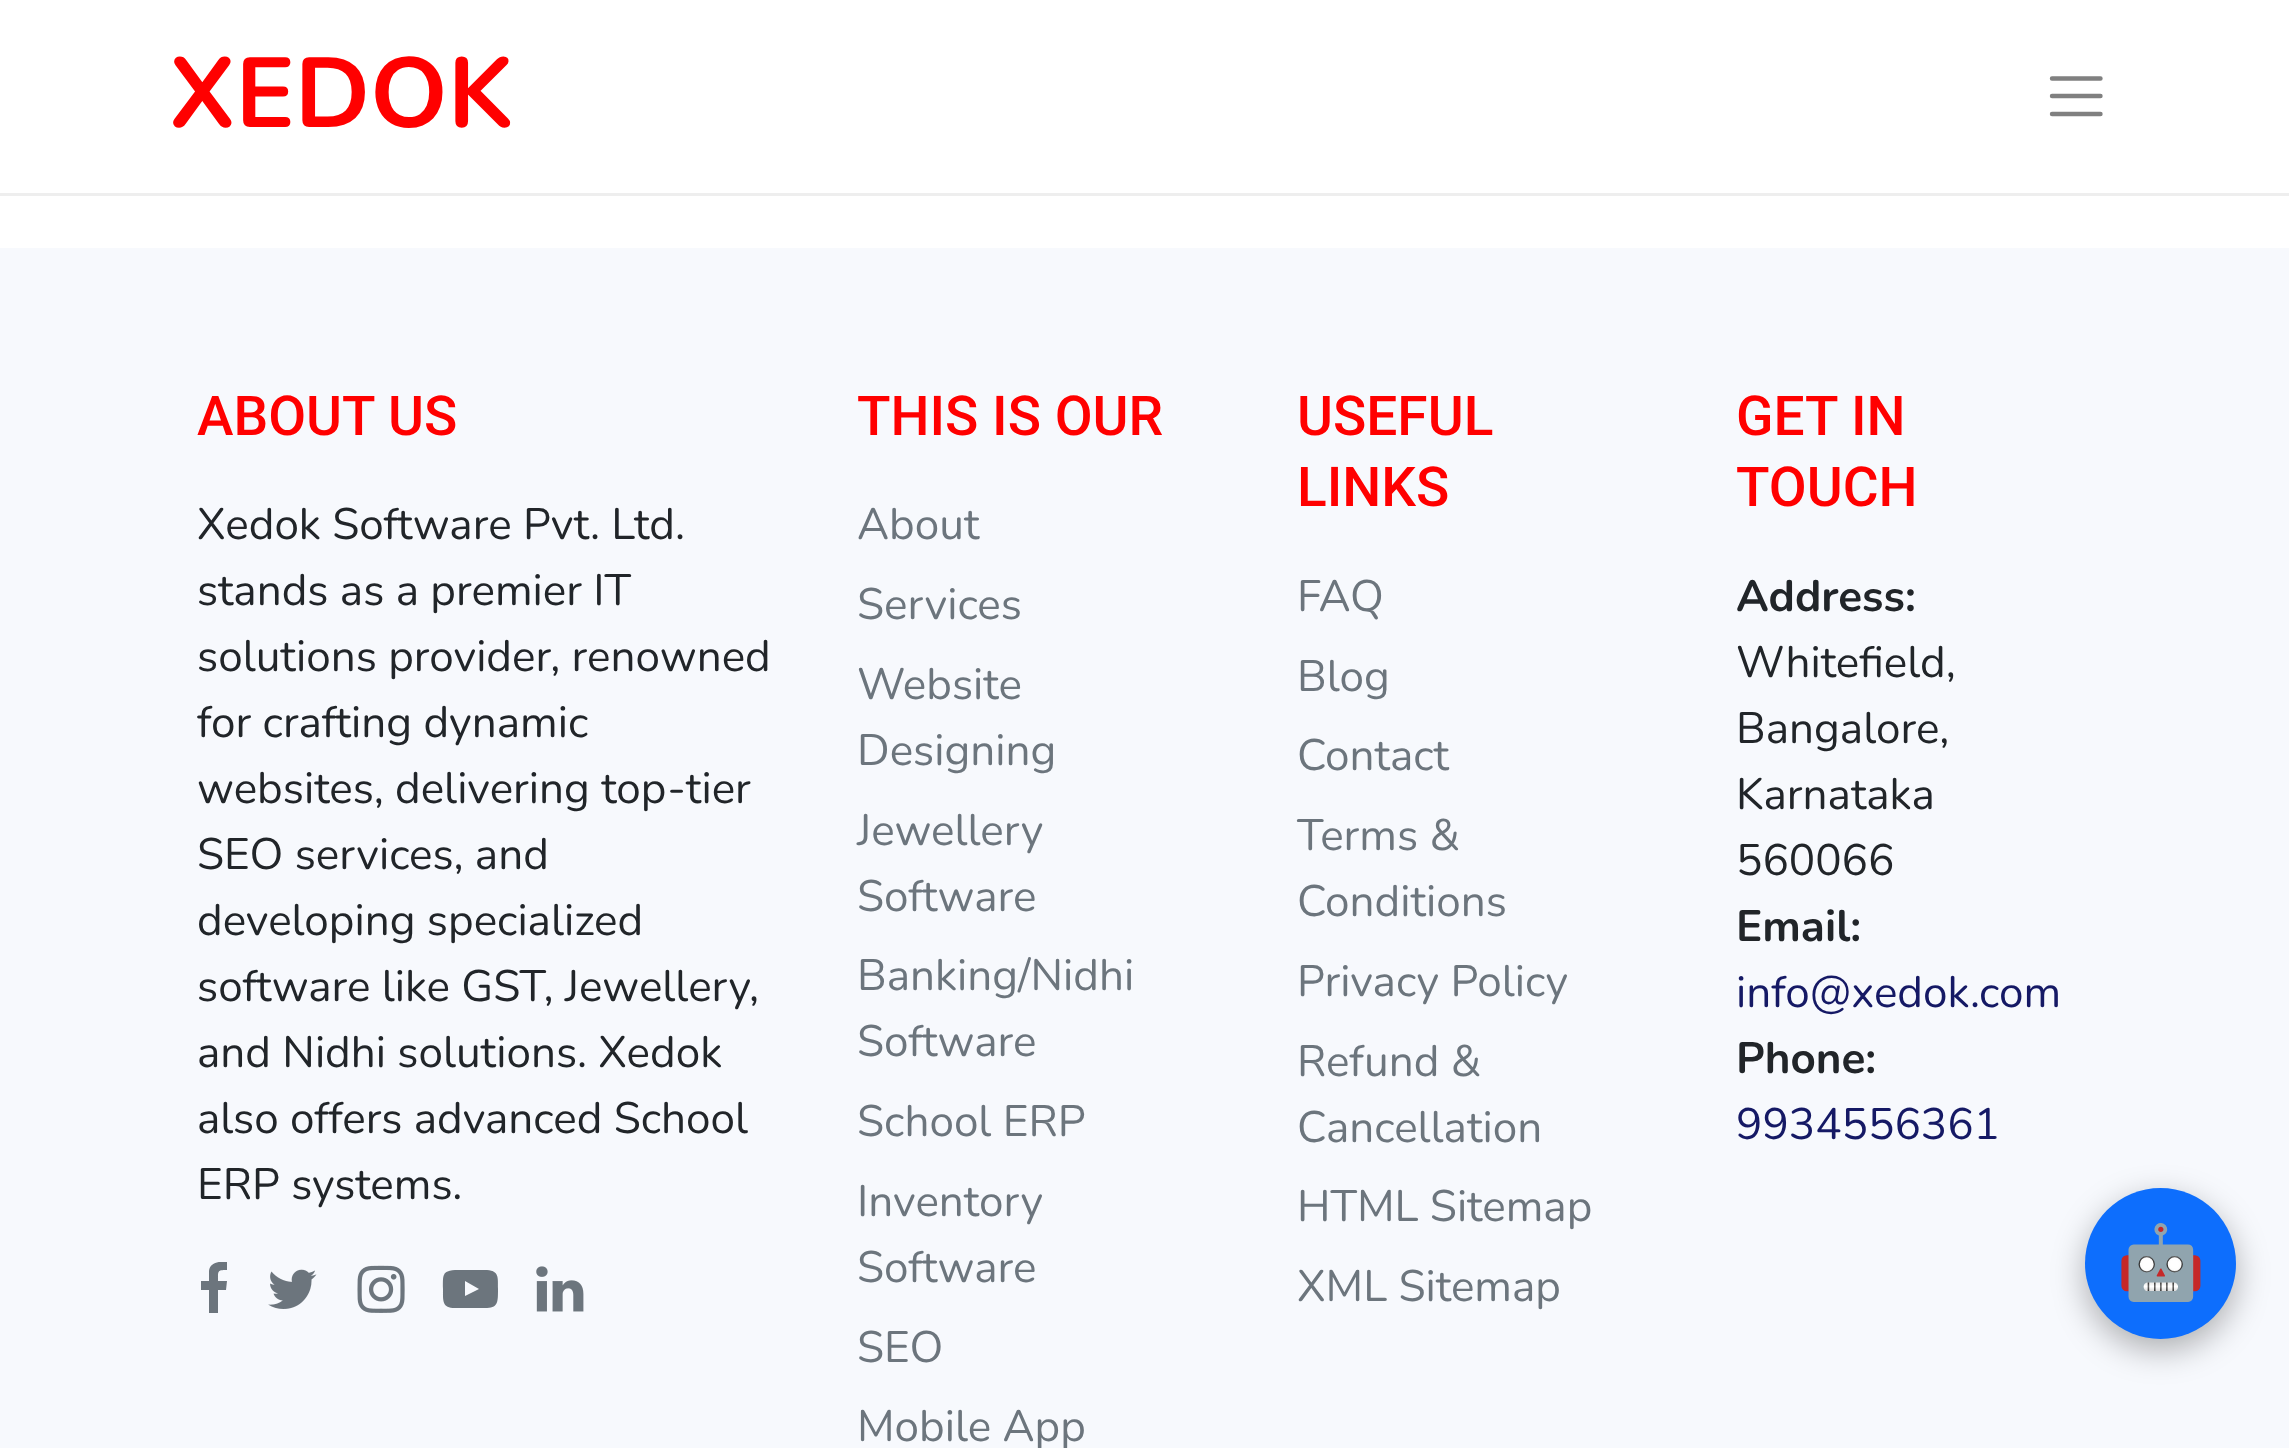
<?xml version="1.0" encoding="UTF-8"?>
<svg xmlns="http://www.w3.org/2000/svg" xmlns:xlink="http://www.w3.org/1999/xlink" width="2289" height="1448">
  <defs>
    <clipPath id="clip1"><rect x="198" y="1262" width="575" height="66" /></clipPath>
  </defs>
  <rect width="100%" height="100%" fill="#ffffff" />
  <rect y="193" width="2289" height="3" fill="#eeeeee" />
  <path d="M 2052 78.5 h 48.5 m -48.5 17.5 h 48.5 m -48.5 18 h 48.5" fill="none" stroke="#808080" stroke-width="4.4" stroke-linecap="round" />
  <rect y="248" width="2289" height="1200" fill="#f7f9fd" />
  <g clip-path="url(#clip1)">
    <path d="M 227 1262 v 8 c -10 0 -9 1 -9 11 h 9 l -1 9 h -8 v 23 h -9 v -23 h -8 v -9 h 8 v -10 c 1 -9 11 -10 18 -9 z" fill="#6c757d" />
  </g>
  <image x="268" y="1269" width="49" height="40" xlink:href="image1.png" />
  <image x="357" y="1265" width="48" height="48" xlink:href="image2.png" />
  <path d="M 465 1296 l 14 -7 l -14 -8 z m 5 -26 h 17 c 12 1 11 7 11 19 c 0 14 0 19 -13 19 h -30 c -13 0 -12 -7 -12 -19 c 0 -14 -1 -18 12 -19 z" fill="#6c757d" />
  <image x="536" y="1266" width="48" height="46" xlink:href="image3.png" />
  <rect x="2085" y="1199" width="151" height="151" rx="75.5" fill="#000000" fill-opacity="0.3" filter="blur(16.5px)" />
  <circle cx="2160.5" cy="1263.5" r="75.5" fill="#0d6efd" />
  <text x="169" y="127" style="font-family: Nunito; font-size: 99px; font-weight: bold; fill: #ff0000">XEDOK</text>
  <text x="197" y="435" style="font-family: Roboto; font-size: 55px; font-weight: 500; fill: #ff0000">ABOUT US</text>
  <text x="197" y="539" style="font-family: Nunito; font-size: 44px; fill: #212529">Xedok Software Pvt. Ltd.</text>
  <text x="197" y="605" style="font-family: Nunito; font-size: 44px; fill: #212529">stands as a premier IT</text>
  <text x="197" y="671" style="font-family: Nunito; font-size: 44px; fill: #212529">solutions provider, renowned</text>
  <text x="197" y="737" style="font-family: Nunito; font-size: 44px; fill: #212529">for crafting dynamic</text>
  <text x="197" y="803" style="font-family: Nunito; font-size: 44px; fill: #212529">websites, delivering top-tier</text>
  <text x="197" y="869" style="font-family: Nunito; font-size: 44px; fill: #212529">SEO services, and</text>
  <text x="197" y="935" style="font-family: Nunito; font-size: 44px; fill: #212529">developing specialized</text>
  <text x="197" y="1001" style="font-family: Nunito; font-size: 44px; fill: #212529">software like GST, Jewellery,</text>
  <text x="197" y="1067" style="font-family: Nunito; font-size: 44px; fill: #212529">and Nidhi solutions. Xedok</text>
  <text x="197" y="1133" style="font-family: Nunito; font-size: 44px; fill: #212529">also offers advanced School</text>
  <text x="197" y="1199" style="font-family: Nunito; font-size: 44px; fill: #212529">ERP systems.</text>
  <text x="857" y="435" style="font-family: Roboto; font-size: 55px; font-weight: 500; fill: #ff0000">THIS IS OUR</text>
  <text x="857" y="539" style="font-family: Nunito; font-size: 44px; fill: #6c757d">About</text>
  <text x="857" y="619" style="font-family: Nunito; font-size: 44px; fill: #6c757d">Services</text>
  <text x="857" y="699" style="font-family: Nunito; font-size: 44px; fill: #6c757d">Website</text>
  <text x="857" y="765" style="font-family: Nunito; font-size: 44px; fill: #6c757d">Designing</text>
  <text x="857" y="845" style="font-family: Nunito; font-size: 44px; fill: #6c757d">Jewellery</text>
  <text x="857" y="911" style="font-family: Nunito; font-size: 44px; fill: #6c757d">Software</text>
  <text x="857" y="990" style="font-family: Nunito; font-size: 44px; fill: #6c757d">Banking/Nidhi</text>
  <text x="857" y="1056" style="font-family: Nunito; font-size: 44px; fill: #6c757d">Software</text>
  <text x="857" y="1136" style="font-family: Nunito; font-size: 44px; fill: #6c757d">School ERP</text>
  <text x="857" y="1216" style="font-family: Nunito; font-size: 44px; fill: #6c757d">Inventory</text>
  <text x="857" y="1282" style="font-family: Nunito; font-size: 44px; fill: #6c757d">Software</text>
  <text x="857" y="1362" style="font-family: Nunito; font-size: 44px; fill: #6c757d">SEO</text>
  <text x="857" y="1441" style="font-family: Nunito; font-size: 44px; fill: #6c757d">Mobile App</text>
  <text x="1297" y="435" style="font-family: Roboto; font-size: 55px; font-weight: 500; fill: #ff0000">USEFUL</text>
  <text x="1297" y="506" style="font-family: Roboto; font-size: 55px; font-weight: 500; fill: #ff0000">LINKS</text>
  <text x="1297" y="611" style="font-family: Nunito; font-size: 44px; fill: #6c757d">FAQ</text>
  <text x="1297" y="691" style="font-family: Nunito; font-size: 44px; fill: #6c757d">Blog</text>
  <text x="1297" y="770" style="font-family: Nunito; font-size: 44px; fill: #6c757d">Contact</text>
  <text x="1297" y="850" style="font-family: Nunito; font-size: 44px; fill: #6c757d">Terms &amp;</text>
  <text x="1297" y="916" style="font-family: Nunito; font-size: 44px; fill: #6c757d">Conditions</text>
  <text x="1297" y="996" style="font-family: Nunito; font-size: 44px; fill: #6c757d">Privacy Policy</text>
  <text x="1297" y="1076" style="font-family: Nunito; font-size: 44px; fill: #6c757d">Refund &amp;</text>
  <text x="1297" y="1142" style="font-family: Nunito; font-size: 44px; fill: #6c757d">Cancellation</text>
  <text x="1297" y="1221" style="font-family: Nunito; font-size: 44px; fill: #6c757d">HTML Sitemap</text>
  <text x="1297" y="1301" style="font-family: Nunito; font-size: 44px; fill: #6c757d">XML Sitemap</text>
  <text x="1736" y="435" style="font-family: Roboto; font-size: 55px; font-weight: 500; fill: #ff0000">GET IN</text>
  <text x="1736" y="506" style="font-family: Roboto; font-size: 55px; font-weight: 500; fill: #ff0000">TOUCH</text>
  <text x="1736" y="611" style="font-family: Nunito; font-size: 44px; font-weight: bold; fill: #212529">Address:</text>
  <text x="1736" y="677" style="font-family: Nunito; font-size: 44px; fill: #212529">Whitefield,</text>
  <text x="1736" y="743" style="font-family: Nunito; font-size: 44px; fill: #212529">Bangalore,</text>
  <text x="1736" y="809" style="font-family: Nunito; font-size: 44px; fill: #212529">Karnataka</text>
  <text x="1736" y="875" style="font-family: Nunito; font-size: 44px; fill: #212529">560066</text>
  <text x="1736" y="941" style="font-family: Nunito; font-size: 44px; font-weight: bold; fill: #212529">Email:</text>
  <text x="1736" y="1007" style="font-family: Nunito; font-size: 44px; fill: #151965">info@xedok.com</text>
  <text x="1736" y="1073" style="font-family: Nunito; font-size: 44px; font-weight: bold; fill: #212529">Phone:</text>
  <text x="1736" y="1139" style="font-family: Nunito; font-size: 44px; fill: #151965">9934556361</text>
  <text x="2116" y="1287" style="font-family: Noto Color Emoji; font-size: 72px; fill: #ffffff">🤖</text>
</svg>
